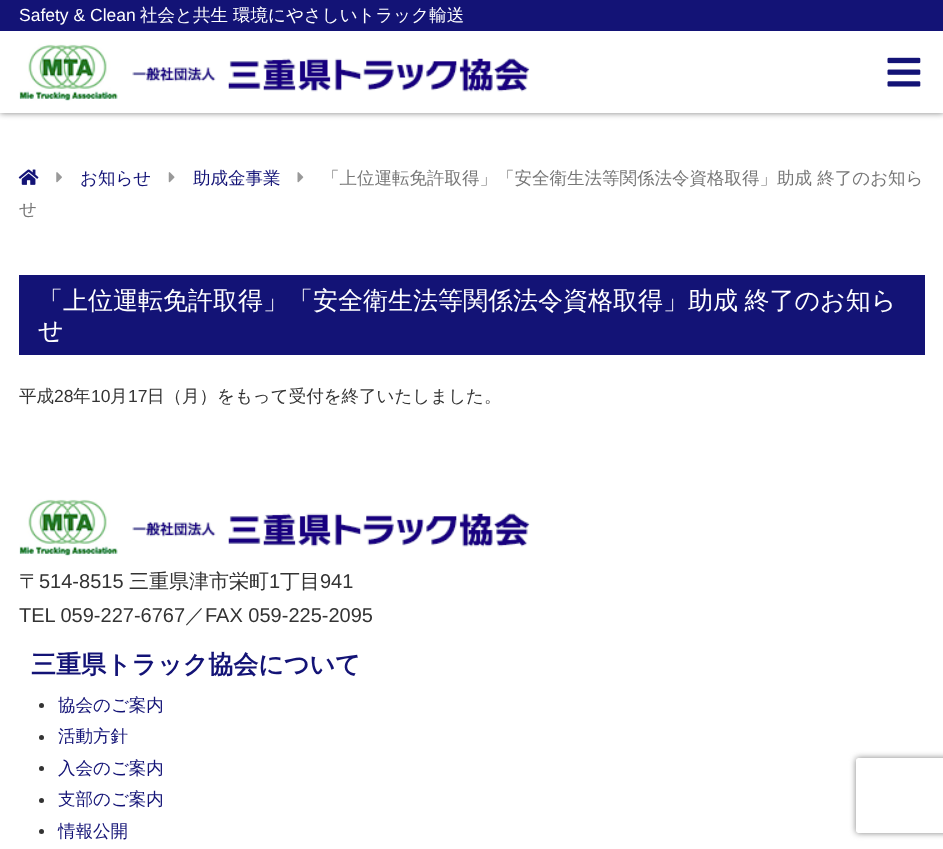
<?xml version="1.0" encoding="UTF-8"?>
<svg xmlns="http://www.w3.org/2000/svg" xmlns:xlink="http://www.w3.org/1999/xlink" width="943" height="849">
  <defs>
    <clipPath id="clip1"><path d="M 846 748 h 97 v 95 h -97 z m 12.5 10 h 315 c 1.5 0 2.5 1 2.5 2.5 v 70 c 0 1.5 -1 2.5 -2.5 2.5 h -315 c -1.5 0 -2.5 -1 -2.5 -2.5 v -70 c 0 -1.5 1 -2.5 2.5 -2.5 z" clip-rule="evenodd" /></clipPath>
  </defs>
  <rect width="100%" height="100%" fill="#ffffff" />
  <rect width="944" height="113" fill="#000000" fill-opacity="0.5" filter="blur(3px)" />
  <rect y="31" width="943" height="82" fill="#ffffff" />
  <rect width="943" height="31" fill="#131376" />
  <image x="19" y="44" width="511" height="57" xlink:href="image1.png" />
  <image x="887" y="57" width="34" height="30" xlink:href="image2.png" />
  <image x="18" y="169" width="21" height="16" xlink:href="image3.png" />
  <image x="56" y="172" width="6" height="11" xlink:href="image4.png" />
  <image x="168" y="172" width="7" height="11" xlink:href="image5.png" />
  <image x="297" y="172" width="7" height="11" xlink:href="image6.png" />
  <rect x="19" y="275" width="906" height="80" fill="#131376" />
  <image x="19" y="499" width="511" height="57" xlink:href="image7.png" />
  <circle cx="41.5" cy="705.5" r="2.5" fill="#333333" />
  <circle cx="41.5" cy="737.5" r="2.5" fill="#333333" />
  <circle cx="41.5" cy="768.5" r="2.5" fill="#333333" />
  <circle cx="41.5" cy="800.5" r="2.5" fill="#333333" />
  <circle cx="41.5" cy="831.5" r="2.5" fill="#333333" />
  <g clip-path="url(#clip1)">
    <rect x="856" y="758" width="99" height="75" rx="2.5" fill="#808080" filter="blur(3px)" />
  </g>
  <text x="19" y="21" style="font-family: Liberation Sans; font-size: 17.5px; fill: #ffffff">Safety &amp; Clean</text>
  <text x="140" y="21" style="font-family: WenQuanYi Zen Hei; font-size: 17.5px; font-weight: 500; fill: #ffffff">社会と共生</text>
  <text x="233" y="21" style="font-family: WenQuanYi Zen Hei; font-size: 17.5px; font-weight: 500; fill: #ffffff">環境にやさしいトラック輸送</text>
  <text x="80" y="184" style="font-family: WenQuanYi Zen Hei; font-size: 17.5px; font-weight: 500; fill: #131376">お知らせ</text>
  <text x="193" y="184" style="font-family: WenQuanYi Zen Hei; font-size: 17.5px; font-weight: 500; fill: #131376">助成金事業</text>
  <text x="322" y="184" style="font-family: WenQuanYi Zen Hei; font-size: 17.5px; font-weight: 500; fill: #777777">「上位運転免許取得」「安全衛生法等関係法令資格取得」助成 終了のお知ら</text>
  <text x="19" y="215" style="font-family: WenQuanYi Zen Hei; font-size: 17.5px; font-weight: 500; fill: #777777">せ</text>
  <text x="38" y="309" word-spacing="-1" style="font-family: WenQuanYi Zen Hei; font-size: 25px; font-weight: 500; fill: #ffffff">「上位運転免許取得」「安全衛生法等関係法令資格取得」助成 終了のお知ら</text>
  <text x="38" y="339" style="font-family: WenQuanYi Zen Hei; font-size: 25px; font-weight: 500; fill: #ffffff">せ</text>
  <text x="19" y="402" style="font-family: WenQuanYi Zen Hei; font-size: 17.5px; font-weight: 500; fill: #333333">平成</text>
  <text x="54" y="402" style="font-family: Liberation Sans; font-size: 17.5px; fill: #333333">28</text>
  <text x="73" y="402" style="font-family: WenQuanYi Zen Hei; font-size: 17.5px; font-weight: 500; fill: #333333">年</text>
  <text x="91" y="402" style="font-family: Liberation Sans; font-size: 17.5px; fill: #333333">10</text>
  <text x="110" y="402" style="font-family: WenQuanYi Zen Hei; font-size: 17.5px; font-weight: 500; fill: #333333">月</text>
  <text x="128" y="402" style="font-family: Liberation Sans; font-size: 17.5px; fill: #333333">17</text>
  <text x="147" y="402" style="font-family: WenQuanYi Zen Hei; font-size: 17.5px; font-weight: 500; fill: #333333">日（月）をもって受付を終了いたしました。</text>
  <text x="19" y="588" style="font-family: WenQuanYi Zen Hei; font-size: 20px; font-weight: 500; fill: #333333">〒</text>
  <text x="39" y="588" style="font-family: Liberation Sans; font-size: 20px; fill: #333333">514-8515</text>
  <text x="129" y="588" style="font-family: WenQuanYi Zen Hei; font-size: 20px; font-weight: 500; fill: #333333">三重県津市栄町</text>
  <text x="269" y="588" style="font-family: Liberation Sans; font-size: 20px; fill: #333333">1</text>
  <text x="280" y="588" style="font-family: WenQuanYi Zen Hei; font-size: 20px; font-weight: 500; fill: #333333">丁目</text>
  <text x="320" y="588" style="font-family: Liberation Sans; font-size: 20px; fill: #333333">941</text>
  <text x="19" y="622" style="font-family: Liberation Sans; font-size: 20px; fill: #333333">TEL 059-227-6767</text>
  <text x="185" y="622" style="font-family: WenQuanYi Zen Hei; font-size: 20px; font-weight: 500; fill: #333333">／</text>
  <text x="205" y="622" style="font-family: Liberation Sans; font-size: 20px; fill: #333333">FAX 059-225-2095</text>
  <text x="31" y="673" style="font-family: WenQuanYi Zen Hei; font-size: 25px; font-weight: bold; fill: #131376">三重県トラック協会について</text>
  <text x="58" y="711" style="font-family: WenQuanYi Zen Hei; font-size: 17.5px; font-weight: 500; fill: #131376">協会のご案内</text>
  <text x="58" y="742" style="font-family: WenQuanYi Zen Hei; font-size: 17.5px; font-weight: 500; fill: #131376">活動方針</text>
  <text x="58" y="774" style="font-family: WenQuanYi Zen Hei; font-size: 17.5px; font-weight: 500; fill: #131376">入会のご案内</text>
  <text x="58" y="805" style="font-family: WenQuanYi Zen Hei; font-size: 17.5px; font-weight: 500; fill: #131376">支部のご案内</text>
  <text x="58" y="837" style="font-family: WenQuanYi Zen Hei; font-size: 17.5px; font-weight: 500; fill: #131376">情報公開</text>
</svg>
